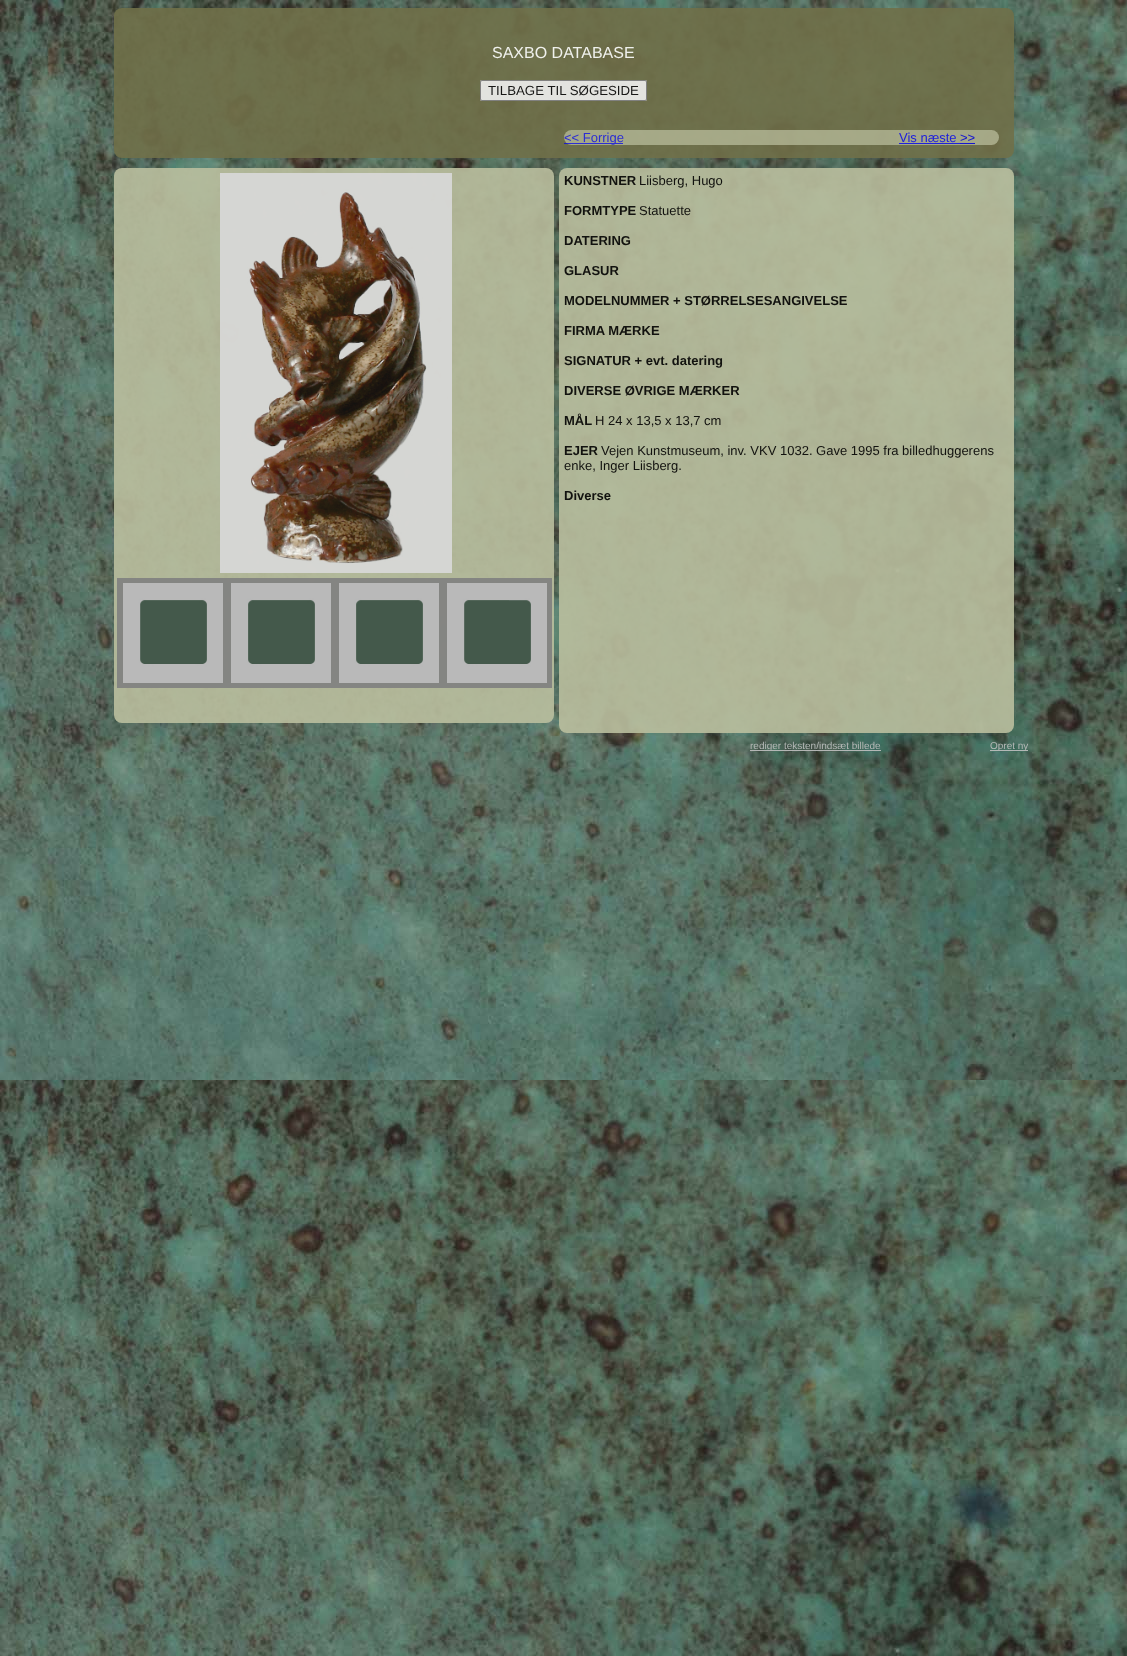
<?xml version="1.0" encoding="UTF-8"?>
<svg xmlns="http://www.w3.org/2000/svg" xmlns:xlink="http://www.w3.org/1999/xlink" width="1127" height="1656">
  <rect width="100%" height="100%" fill="#ffffff" />
  <image x="0" y="0" width="1127" height="1656" xlink:href="image1.png" />
  <rect x="114" y="8" width="900" height="150" rx="8" fill="#707049" fill-opacity="0.9" />
  <rect x="480" y="80" width="167" height="21" rx="2" fill="#efefef" fill-opacity="0.9" />
  <rect x="480.5" y="80.5" width="166" height="20" rx="1.5" fill="none" stroke="#767676" stroke-opacity="0.9" />
  <rect x="114" y="168" width="440" height="555" rx="8" fill="#babf9e" fill-opacity="0.9" />
  <image x="220" y="173" width="232" height="400" xlink:href="image2.png" />
  <rect x="117" y="578" width="435" height="110" fill="#808080" fill-opacity="0.9" />
  <image x="123" y="583" width="100" height="100" xlink:href="image3.png" />
  <image x="231" y="583" width="100" height="100" xlink:href="image4.png" />
  <image x="339" y="583" width="100" height="100" xlink:href="image5.png" />
  <image x="447" y="583" width="100" height="100" xlink:href="image6.png" />
  <rect x="559" y="168" width="455" height="565" rx="8" fill="#babf9e" fill-opacity="0.9" />
  <rect x="564" y="130" width="435" height="15" rx="7.5" fill="#babf9e" fill-opacity="0.73" />
  <rect x="564" y="143" width="59" height="1" fill="#0000ee" fill-opacity="0.73" />
  <rect x="899" y="143" width="61" height="1" fill="#1f20db" />
  <rect x="960" y="143" width="15" height="1" fill="#1515cf" />
  <rect x="750" y="750" width="131" height="1" fill="#c0c0c0" fill-opacity="0.9" />
  <rect x="990" y="750" width="38" height="1" fill="#c0c0c0" fill-opacity="0.9" />
  <text x="492" y="58" style="font-family: Liberation Sans; font-size: 16px; fill: #f0f1ed">SAXBO DATABASE</text>
  <text x="488" y="95" style="font-family: Liberation Sans; font-size: 13.25px; fill: #171716">TILBAGE TIL SØGESIDE</text>
  <text x="564" y="142" style="font-family: Liberation Sans; font-size: 13px; fill: #2c2dd3">&lt;&lt; Forrige</text>
  <text x="899" y="142" style="font-family: Liberation Sans; font-size: 13px; fill: #1f20db">Vis næste</text>
  <text x="960" y="142" style="font-family: Liberation Sans; font-size: 13px; fill: #1515cf">&gt;&gt;</text>
  <text x="564" y="185" style="font-family: Liberation Sans; font-size: 13px; font-weight: bold; fill: #12120f">KUNSTNER</text>
  <text x="639" y="185" style="font-family: Liberation Sans; font-size: 13px; fill: #12120f">Liisberg, Hugo</text>
  <text x="564" y="215" style="font-family: Liberation Sans; font-size: 13px; font-weight: bold; fill: #12120f">FORMTYPE</text>
  <text x="639" y="215" style="font-family: Liberation Sans; font-size: 13px; fill: #12120f">Statuette</text>
  <text x="564" y="245" style="font-family: Liberation Sans; font-size: 13px; font-weight: bold; fill: #12120f">DATERING</text>
  <text x="564" y="275" style="font-family: Liberation Sans; font-size: 13px; font-weight: bold; fill: #12120f">GLASUR</text>
  <text x="564" y="305" style="font-family: Liberation Sans; font-size: 13px; font-weight: bold; fill: #12120f">MODELNUMMER + STØRRELSESANGIVELSE</text>
  <text x="564" y="335" style="font-family: Liberation Sans; font-size: 13px; font-weight: bold; fill: #12120f">FIRMA MÆRKE</text>
  <text x="564" y="365" style="font-family: Liberation Sans; font-size: 13px; font-weight: bold; fill: #12120f">SIGNATUR + evt. datering</text>
  <text x="564" y="395" style="font-family: Liberation Sans; font-size: 13px; font-weight: bold; fill: #12120f">DIVERSE ØVRIGE MÆRKER</text>
  <text x="564" y="425" style="font-family: Liberation Sans; font-size: 13px; font-weight: bold; fill: #12120f">MÅL</text>
  <text x="595" y="425" style="font-family: Liberation Sans; font-size: 13px; fill: #12120f">H 24 x 13,5 x 13,7 cm</text>
  <text x="564" y="455" style="font-family: Liberation Sans; font-size: 13px; font-weight: bold; fill: #12120f">EJER</text>
  <text x="601" y="455" style="font-family: Liberation Sans; font-size: 13px; fill: #12120f">Vejen Kunstmuseum, inv. VKV 1032. Gave 1995 fra billedhuggerens</text>
  <text x="564" y="470" style="font-family: Liberation Sans; font-size: 13px; fill: #12120f">enke, Inger Liisberg.</text>
  <text x="564" y="500" style="font-family: Liberation Sans; font-size: 13px; font-weight: bold; fill: #12120f">Diverse</text>
  <text x="750" y="749" style="font-family: Liberation Sans; font-size: 10px; fill: #b4b8b6">rediger teksten/indsæt billede</text>
  <text x="990" y="749" style="font-family: Liberation Sans; font-size: 10px; fill: #b4b8b6">Opret ny</text>
</svg>
